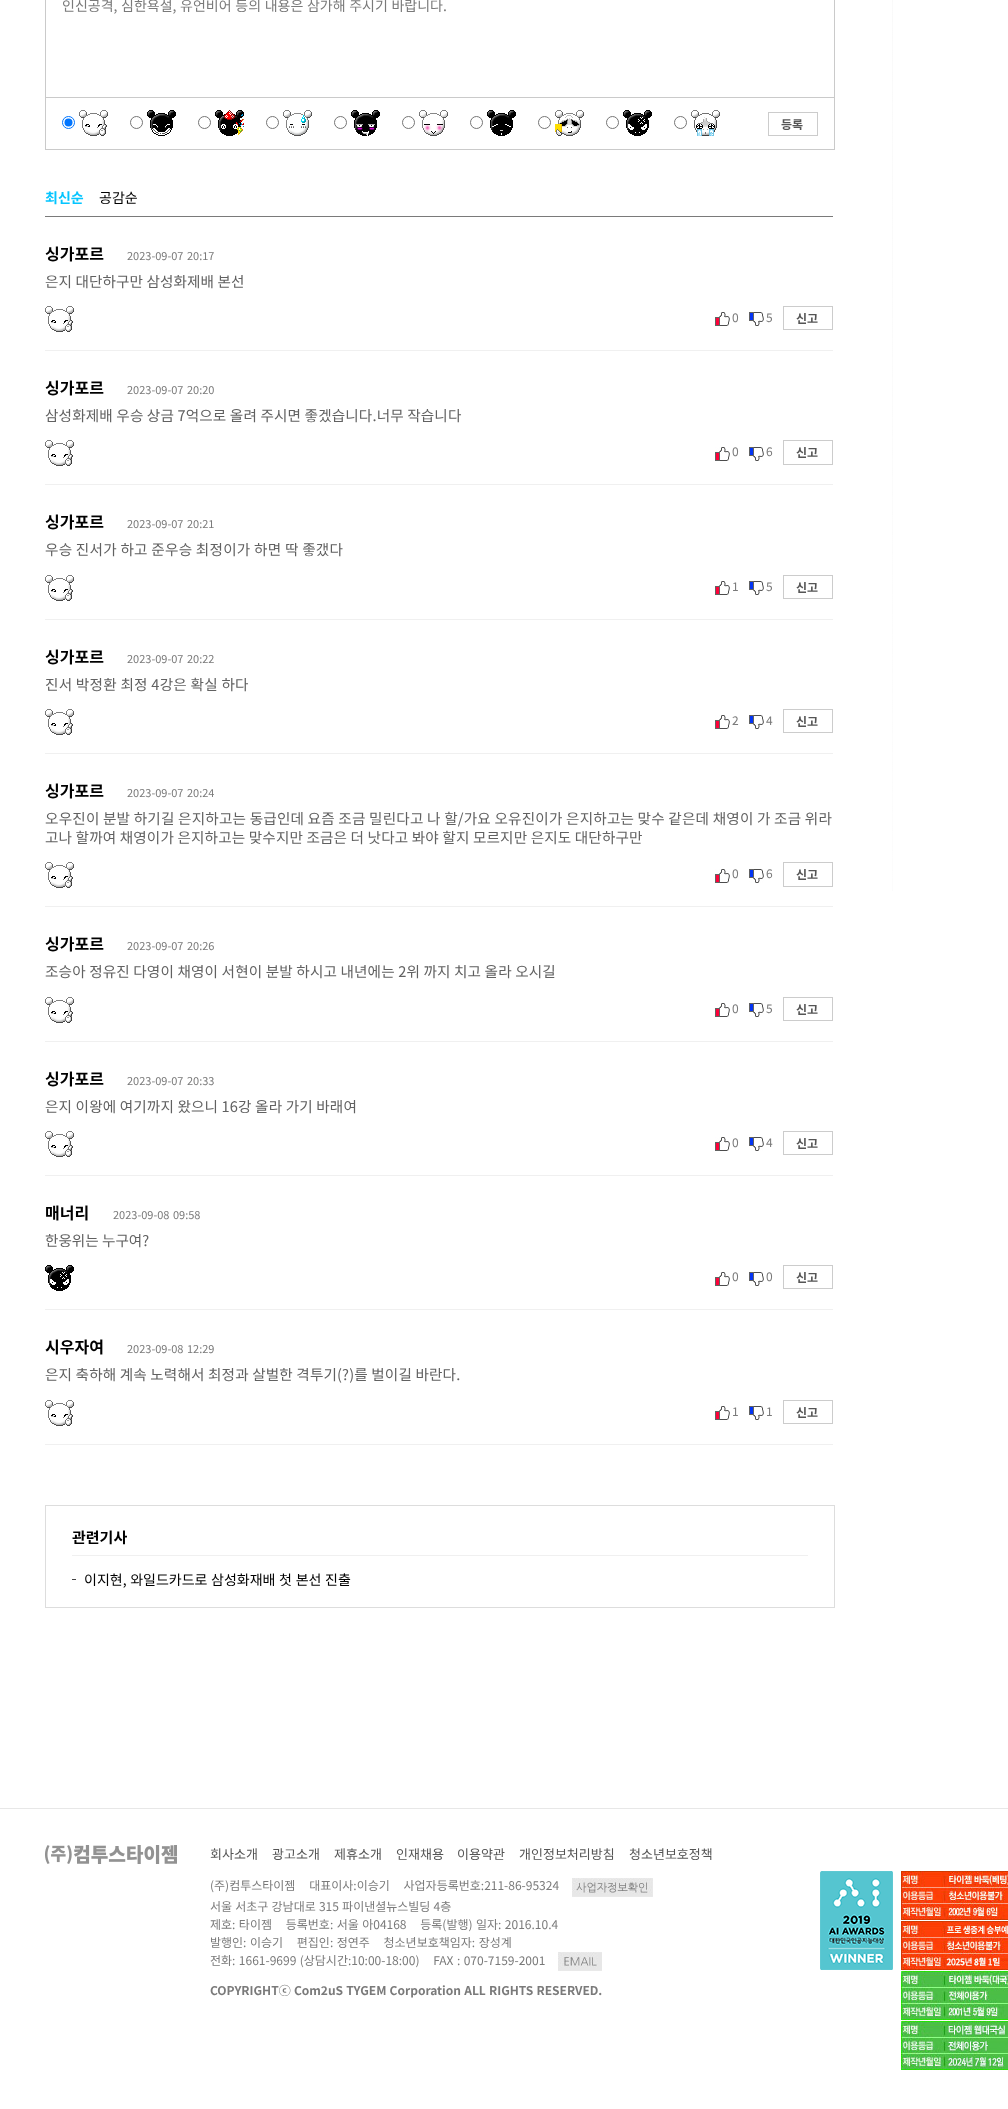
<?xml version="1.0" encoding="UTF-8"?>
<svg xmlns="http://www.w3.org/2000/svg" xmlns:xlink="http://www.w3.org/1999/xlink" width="1008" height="2109">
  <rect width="100%" height="100%" fill="#ffffff" />
  <image x="892" y="0" width="1" height="891" xlink:href="image1.png" />
  <rect x="45.5" y="-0.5" width="789" height="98" fill="none" stroke="#cacaca" />
  <rect x="834" y="98" width="1" height="52" fill="#cacaca" />
  <rect x="45" y="149" width="790" height="1" fill="#cacaca" />
  <rect x="45" y="98" width="1" height="52" fill="#cacaca" />
  <circle cx="68.5" cy="122.5" r="6" fill="none" stroke="#0075ff" />
  <circle cx="68.5" cy="122.5" r="4" fill="#0075ff" />
  <image x="79" y="110" width="29" height="26" xlink:href="image2.png" />
  <circle cx="136.5" cy="122.5" r="6" fill="none" stroke="#767676" />
  <image x="147" y="110" width="29" height="26" xlink:href="image3.png" />
  <circle cx="204.5" cy="122.5" r="6" fill="none" stroke="#767676" />
  <image x="215" y="110" width="29" height="26" xlink:href="image4.png" />
  <circle cx="272.5" cy="122.5" r="6" fill="none" stroke="#767676" />
  <image x="283" y="110" width="29" height="26" xlink:href="image5.png" />
  <circle cx="340.5" cy="122.5" r="6" fill="none" stroke="#767676" />
  <image x="351" y="110" width="29" height="26" xlink:href="image6.png" />
  <circle cx="408.5" cy="122.5" r="6" fill="none" stroke="#767676" />
  <image x="419" y="110" width="29" height="26" xlink:href="image7.png" />
  <circle cx="476.5" cy="122.5" r="6" fill="none" stroke="#767676" />
  <image x="487" y="110" width="29" height="26" xlink:href="image8.png" />
  <circle cx="544.5" cy="122.5" r="6" fill="none" stroke="#767676" />
  <image x="555" y="110" width="29" height="26" xlink:href="image9.png" />
  <circle cx="612.5" cy="122.5" r="6" fill="none" stroke="#767676" />
  <image x="623" y="110" width="29" height="26" xlink:href="image10.png" />
  <circle cx="680.5" cy="122.5" r="6" fill="none" stroke="#767676" />
  <image x="691" y="110" width="29" height="26" xlink:href="image11.png" />
  <rect x="768.5" y="112.5" width="49" height="23" fill="none" stroke="#cccccc" />
  <rect x="45" y="216" width="788" height="1" fill="#7a7a7a" />
  <rect x="45" y="350" width="788" height="1" fill="#f0f0f0" />
  <image x="45" y="306" width="29" height="26" xlink:href="image2.png" />
  <image x="715" y="312" width="15" height="14" xlink:href="image12.png" />
  <image x="749" y="311" width="15" height="15" xlink:href="image13.png" />
  <rect x="783.5" y="306.5" width="49" height="23" fill="none" stroke="#cccccc" />
  <rect x="45" y="484" width="788" height="1" fill="#f0f0f0" />
  <image x="45" y="440" width="29" height="26" xlink:href="image2.png" />
  <image x="715" y="447" width="15" height="14" xlink:href="image12.png" />
  <image x="749" y="446" width="15" height="15" xlink:href="image13.png" />
  <rect x="783.5" y="440.5" width="49" height="24" fill="none" stroke="#cccccc" />
  <rect x="45" y="619" width="788" height="1" fill="#f0f0f0" />
  <image x="45" y="575" width="29" height="26" xlink:href="image2.png" />
  <image x="715" y="581" width="15" height="14" xlink:href="image12.png" />
  <image x="749" y="580" width="15" height="15" xlink:href="image13.png" />
  <rect x="783.5" y="575.5" width="49" height="23" fill="none" stroke="#cccccc" />
  <rect x="45" y="753" width="788" height="1" fill="#f0f0f0" />
  <image x="45" y="709" width="29" height="26" xlink:href="image2.png" />
  <image x="715" y="715" width="15" height="14" xlink:href="image12.png" />
  <image x="749" y="714" width="15" height="15" xlink:href="image13.png" />
  <rect x="783.5" y="709.5" width="49" height="23" fill="none" stroke="#cccccc" />
  <rect x="45" y="906" width="788" height="1" fill="#f0f0f0" />
  <image x="45" y="862" width="29" height="26" xlink:href="image2.png" />
  <image x="715" y="869" width="15" height="14" xlink:href="image12.png" />
  <image x="749" y="868" width="15" height="15" xlink:href="image13.png" />
  <rect x="783.5" y="862.5" width="49" height="24" fill="none" stroke="#cccccc" />
  <rect x="45" y="1041" width="788" height="1" fill="#f0f0f0" />
  <image x="45" y="997" width="29" height="26" xlink:href="image2.png" />
  <image x="715" y="1003" width="15" height="14" xlink:href="image12.png" />
  <image x="749" y="1002" width="15" height="15" xlink:href="image13.png" />
  <rect x="783.5" y="997.5" width="49" height="23" fill="none" stroke="#cccccc" />
  <rect x="45" y="1175" width="788" height="1" fill="#f0f0f0" />
  <image x="45" y="1131" width="29" height="26" xlink:href="image2.png" />
  <image x="715" y="1137" width="15" height="14" xlink:href="image12.png" />
  <image x="749" y="1136" width="15" height="15" xlink:href="image13.png" />
  <rect x="783.5" y="1131.5" width="49" height="23" fill="none" stroke="#cccccc" />
  <rect x="45" y="1309" width="788" height="1" fill="#f0f0f0" />
  <image x="45" y="1265" width="29" height="26" xlink:href="image10.png" />
  <image x="715" y="1272" width="15" height="14" xlink:href="image12.png" />
  <image x="749" y="1271" width="15" height="15" xlink:href="image13.png" />
  <rect x="783.5" y="1265.5" width="49" height="23" fill="none" stroke="#cccccc" />
  <rect x="45" y="1444" width="788" height="1" fill="#f0f0f0" />
  <image x="45" y="1400" width="29" height="26" xlink:href="image2.png" />
  <image x="715" y="1406" width="15" height="14" xlink:href="image12.png" />
  <image x="749" y="1405" width="15" height="15" xlink:href="image13.png" />
  <rect x="783.5" y="1400.5" width="49" height="23" fill="none" stroke="#cccccc" />
  <rect x="45.5" y="1505.5" width="789" height="102" fill="none" stroke="#dddddd" />
  <rect x="72" y="1555" width="736" height="1" fill="#f0f0f0" />
  <rect x="72" y="1579" width="4" height="1" fill="#444444" />
  <rect y="1808" width="1008" height="1" fill="#e7e7e7" />
  <image x="45" y="1845" width="132" height="19" xlink:href="image14.png" />
  <image x="572" y="1878" width="81" height="19" xlink:href="image15.png" />
  <image x="558" y="1952" width="44" height="19" xlink:href="image16.png" />
  <image x="820" y="1871" width="73" height="99" xlink:href="image17.png" />
  <image x="901" y="1871" width="107" height="199" xlink:href="image18.png" />
  <text x="62" y="11" word-spacing="0.5" style="font-family: Noto Sans KR; font-size: 14px; fill: #7a7a7a">인신공격, 심한욕설, 유언비어 등의 내용은 삼가해 주시기 바랍니다.</text>
  <text x="781" y="129" style="font-family: Noto Sans KR; font-size: 12px; font-weight: bold; fill: #555555">등록</text>
  <text x="45" y="203" style="font-family: Noto Sans KR; font-size: 14px; font-weight: bold; fill: #05c5ff">최신순</text>
  <text x="99" y="203" style="font-family: Noto Sans KR; font-size: 14px; fill: #000000">공감순</text>
  <text x="45" y="260" style="font-family: Noto Sans KR; font-size: 16px; font-weight: bold; fill: #000000">싱가포르</text>
  <text x="127" y="260" word-spacing="1" style="font-family: Noto Sans KR; font-size: 11px; fill: #7a7a7a">2023-09-07 20:17</text>
  <text x="45" y="287" style="font-family: Noto Sans KR; font-size: 14.6px; letter-spacing: 0.1px; fill: #616161">은지 대단하구만 삼성화제배 본선</text>
  <text x="732" y="322" style="font-family: Noto Sans KR; font-size: 12px; fill: #7a7a7a">0</text>
  <text x="766" y="322" style="font-family: Noto Sans KR; font-size: 12px; fill: #7a7a7a">5</text>
  <text x="796" y="323" style="font-family: Noto Sans KR; font-size: 12px; font-weight: bold; fill: #555555">신고</text>
  <text x="45" y="394" style="font-family: Noto Sans KR; font-size: 16px; font-weight: bold; fill: #000000">싱가포르</text>
  <text x="127" y="394" word-spacing="1" style="font-family: Noto Sans KR; font-size: 11px; fill: #7a7a7a">2023-09-07 20:20</text>
  <text x="45" y="421" style="font-family: Noto Sans KR; font-size: 14.6px; letter-spacing: 0.15px; fill: #616161">삼성화제배 우승 상금 7억으로 올려 주시면 좋겠습니다.너무 작습니다</text>
  <text x="732" y="456" style="font-family: Noto Sans KR; font-size: 12px; fill: #7a7a7a">0</text>
  <text x="766" y="456" style="font-family: Noto Sans KR; font-size: 12px; fill: #7a7a7a">6</text>
  <text x="796" y="457" style="font-family: Noto Sans KR; font-size: 12px; font-weight: bold; fill: #555555">신고</text>
  <text x="45" y="528" style="font-family: Noto Sans KR; font-size: 16px; font-weight: bold; fill: #000000">싱가포르</text>
  <text x="127" y="528" word-spacing="1" style="font-family: Noto Sans KR; font-size: 11px; fill: #7a7a7a">2023-09-07 20:21</text>
  <text x="45" y="555" style="font-family: Noto Sans KR; font-size: 14.6px; letter-spacing: 0.25px; fill: #616161">우승 진서가 하고 준우승 최정이가 하면 딱 좋갰다</text>
  <text x="732" y="591" style="font-family: Noto Sans KR; font-size: 12px; fill: #7a7a7a">1</text>
  <text x="766" y="591" style="font-family: Noto Sans KR; font-size: 12px; fill: #7a7a7a">5</text>
  <text x="796" y="592" style="font-family: Noto Sans KR; font-size: 12px; font-weight: bold; fill: #555555">신고</text>
  <text x="45" y="663" style="font-family: Noto Sans KR; font-size: 16px; font-weight: bold; fill: #000000">싱가포르</text>
  <text x="127" y="663" word-spacing="1" style="font-family: Noto Sans KR; font-size: 11px; fill: #7a7a7a">2023-09-07 20:22</text>
  <text x="45" y="690" style="font-family: Noto Sans KR; font-size: 14.6px; letter-spacing: 0.25px; fill: #616161">진서 박정환 최정 4강은 확실 하다</text>
  <text x="732" y="725" style="font-family: Noto Sans KR; font-size: 12px; fill: #7a7a7a">2</text>
  <text x="766" y="725" style="font-family: Noto Sans KR; font-size: 12px; fill: #7a7a7a">4</text>
  <text x="796" y="726" style="font-family: Noto Sans KR; font-size: 12px; font-weight: bold; fill: #555555">신고</text>
  <text x="45" y="797" style="font-family: Noto Sans KR; font-size: 16px; font-weight: bold; fill: #000000">싱가포르</text>
  <text x="127" y="797" word-spacing="1" style="font-family: Noto Sans KR; font-size: 11px; fill: #7a7a7a">2023-09-07 20:24</text>
  <text x="45" y="824" style="font-family: Noto Sans KR; font-size: 14.6px; letter-spacing: 0.2px; fill: #616161">오우진이 분발 하기길 은지하고는 동급인데 요즘 조금 밀린다고 나 할/가요 오유진이가 은지하고는 맞수 같은데 채영이 가 조금 위라</text>
  <text x="45" y="843" style="font-family: Noto Sans KR; font-size: 14.6px; letter-spacing: 0.15px; fill: #616161">고나 할까여 채영이가 은지하고는 맞수지만 조금은 더 낫다고 봐야 할지 모르지만 은지도 대단하구만</text>
  <text x="732" y="878" style="font-family: Noto Sans KR; font-size: 12px; fill: #7a7a7a">0</text>
  <text x="766" y="878" style="font-family: Noto Sans KR; font-size: 12px; fill: #7a7a7a">6</text>
  <text x="796" y="879" style="font-family: Noto Sans KR; font-size: 12px; font-weight: bold; fill: #555555">신고</text>
  <text x="45" y="950" style="font-family: Noto Sans KR; font-size: 16px; font-weight: bold; fill: #000000">싱가포르</text>
  <text x="127" y="950" word-spacing="1" style="font-family: Noto Sans KR; font-size: 11px; fill: #7a7a7a">2023-09-07 20:26</text>
  <text x="45" y="977" style="font-family: Noto Sans KR; font-size: 14.6px; letter-spacing: 0.15px; fill: #616161">조승아 정유진 다영이 채영이 서현이 분발 하시고 내년에는 2위 까지 치고 올라 오시길</text>
  <text x="732" y="1013" style="font-family: Noto Sans KR; font-size: 12px; fill: #7a7a7a">0</text>
  <text x="766" y="1013" style="font-family: Noto Sans KR; font-size: 12px; fill: #7a7a7a">5</text>
  <text x="796" y="1014" style="font-family: Noto Sans KR; font-size: 12px; font-weight: bold; fill: #555555">신고</text>
  <text x="45" y="1085" style="font-family: Noto Sans KR; font-size: 16px; font-weight: bold; fill: #000000">싱가포르</text>
  <text x="127" y="1085" word-spacing="1" style="font-family: Noto Sans KR; font-size: 11px; fill: #7a7a7a">2023-09-07 20:33</text>
  <text x="45" y="1112" style="font-family: Noto Sans KR; font-size: 14.6px; letter-spacing: 0.15px; fill: #616161">은지 이왕에 여기까지 왔으니 16강 올라 가기 바래여</text>
  <text x="732" y="1147" style="font-family: Noto Sans KR; font-size: 12px; fill: #7a7a7a">0</text>
  <text x="766" y="1147" style="font-family: Noto Sans KR; font-size: 12px; fill: #7a7a7a">4</text>
  <text x="796" y="1148" style="font-family: Noto Sans KR; font-size: 12px; font-weight: bold; fill: #555555">신고</text>
  <text x="45" y="1219" style="font-family: Noto Sans KR; font-size: 16px; font-weight: bold; fill: #000000">매너리</text>
  <text x="113" y="1219" word-spacing="1" style="font-family: Noto Sans KR; font-size: 11px; fill: #7a7a7a">2023-09-08 09:58</text>
  <text x="45" y="1246" style="font-family: Noto Sans KR; font-size: 14.6px; fill: #616161">한웅위는 누구여?</text>
  <text x="732" y="1281" style="font-family: Noto Sans KR; font-size: 12px; fill: #7a7a7a">0</text>
  <text x="766" y="1281" style="font-family: Noto Sans KR; font-size: 12px; fill: #7a7a7a">0</text>
  <text x="796" y="1282" style="font-family: Noto Sans KR; font-size: 12px; font-weight: bold; fill: #555555">신고</text>
  <text x="45" y="1353" style="font-family: Noto Sans KR; font-size: 16px; font-weight: bold; fill: #000000">시우자여</text>
  <text x="127" y="1353" word-spacing="1" style="font-family: Noto Sans KR; font-size: 11px; fill: #7a7a7a">2023-09-08 12:29</text>
  <text x="45" y="1380" style="font-family: Noto Sans KR; font-size: 14.6px; letter-spacing: 0.15px; fill: #616161">은지 축하해 계속 노력해서 최정과 살벌한 격투기(?)를 벌이길 바란다.</text>
  <text x="732" y="1416" style="font-family: Noto Sans KR; font-size: 12px; fill: #7a7a7a">1</text>
  <text x="766" y="1416" style="font-family: Noto Sans KR; font-size: 12px; fill: #7a7a7a">1</text>
  <text x="796" y="1417" style="font-family: Noto Sans KR; font-size: 12px; font-weight: bold; fill: #555555">신고</text>
  <text x="72" y="1543" style="font-family: Noto Sans KR; font-size: 15px; font-weight: bold; fill: #000000">관련기사</text>
  <text x="84" y="1585" word-spacing="0.5" style="font-family: Noto Sans KR; font-size: 14px; fill: #000000">이지현, 와일드카드로 삼성화재배 첫 본선 진출</text>
  <text x="210" y="1859" style="font-family: Noto Sans KR; font-size: 13px; fill: #555555">회사소개</text>
  <text x="272" y="1859" style="font-family: Noto Sans KR; font-size: 13px; fill: #555555">광고소개</text>
  <text x="334" y="1859" style="font-family: Noto Sans KR; font-size: 13px; fill: #555555">제휴소개</text>
  <text x="396" y="1859" style="font-family: Noto Sans KR; font-size: 13px; fill: #555555">인재채용</text>
  <text x="457" y="1859" style="font-family: Noto Sans KR; font-size: 13px; fill: #555555">이용약관</text>
  <text x="519" y="1859" style="font-family: Noto Sans KR; font-size: 13px; fill: #555555">개인정보처리방침</text>
  <text x="629" y="1859" style="font-family: Noto Sans KR; font-size: 13px; fill: #555555">청소년보호정책</text>
  <text x="210" y="1890" word-spacing="0.75" style="font-family: Noto Sans KR; font-size: 12px; fill: #7a7a7a" xml:space="preserve">(주)컴투스타이젬    대표이사:이승기    사업자등록번호:211-86-95324</text>
  <text x="210" y="1911" word-spacing="0.5" style="font-family: Noto Sans KR; font-size: 12px; fill: #7a7a7a">서울 서초구 강남대로 315 파이낸셜뉴스빌딩 4층</text>
  <text x="210" y="1929" word-spacing="0.75" style="font-family: Noto Sans KR; font-size: 12px; fill: #7a7a7a" xml:space="preserve">제호: 타이젬    등록번호: 서울 아04168    등록(발행) 일자: 2016.10.4</text>
  <text x="210" y="1947" word-spacing="0.75" style="font-family: Noto Sans KR; font-size: 12px; fill: #7a7a7a" xml:space="preserve">발행인: 이승기    편집인: 정연주    청소년보호책임자: 장성계</text>
  <text x="210" y="1965" word-spacing="0.75" style="font-family: Noto Sans KR; font-size: 12px; fill: #7a7a7a" xml:space="preserve">전화: 1661-9699 (상담시간:10:00-18:00)    FAX : 070-7159-2001</text>
  <text x="210" y="1995" word-spacing="0.5" style="font-family: Noto Sans KR; font-size: 12px; font-weight: bold; fill: #7a7a7a">COPYRIGHTⓒ Com2uS TYGEM Corporation ALL RIGHTS RESERVED.</text>
</svg>
